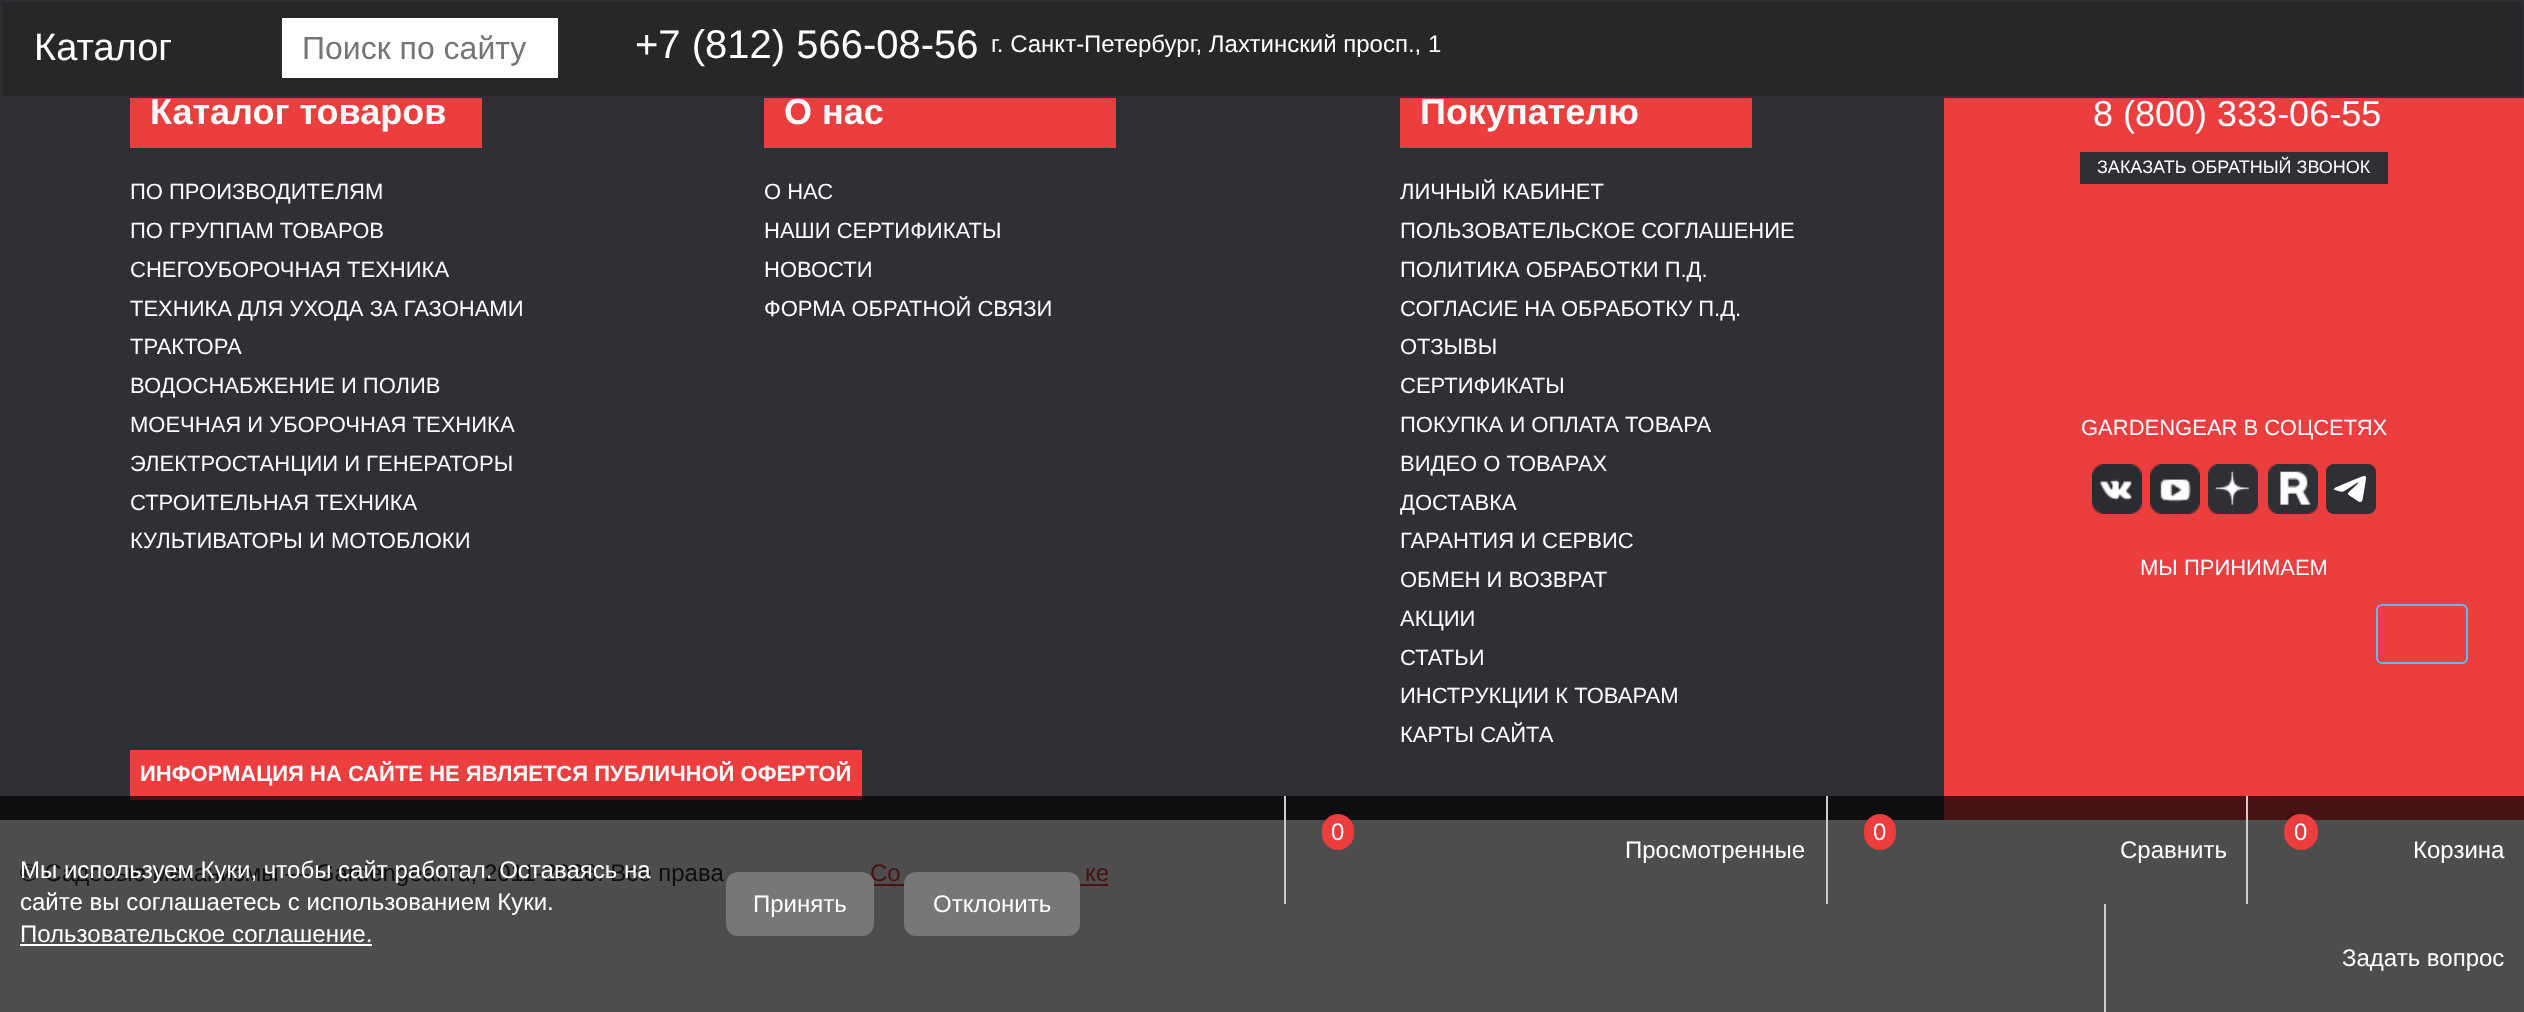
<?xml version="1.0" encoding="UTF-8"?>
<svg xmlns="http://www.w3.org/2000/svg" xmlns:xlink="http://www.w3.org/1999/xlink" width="2524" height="1012">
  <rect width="100%" height="100%" fill="#4d4d4d" />
  <rect x="1" y="1" width="2522" height="96" fill="#272727" stroke="#2e2e35" stroke-width="2" />
  <rect x="282" y="18" width="276" height="60" fill="#ffffff" />
  <rect y="98" width="1944" height="698" fill="#2f2f36" />
  <rect y="796" width="1944" height="24" fill="#0e0e10" />
  <rect x="130" y="98" width="352" height="50" fill="#ec3d3f" />
  <rect x="764" y="98" width="352" height="50" fill="#ec3d3f" />
  <rect x="1400" y="98" width="352" height="50" fill="#ec3d3f" />
  <rect x="130" y="750" width="732" height="46" fill="#ec3d3f" />
  <rect x="130" y="796" width="732" height="4" fill="#471213" />
  <rect x="1944" y="98" width="580" height="698" fill="#ec3d3f" />
  <rect x="1944" y="796" width="580" height="24" fill="#471213" />
  <rect x="2080" y="152" width="308" height="32" fill="#2f3035" />
  <image x="2092" y="464" width="50" height="50" xlink:href="image1.png" />
  <image x="2150" y="464" width="50" height="50" xlink:href="image2.png" />
  <image x="2208" y="464" width="50" height="50" xlink:href="image3.png" />
  <image x="2268" y="464" width="50" height="50" xlink:href="image4.png" />
  <image x="2326" y="464" width="50" height="50" xlink:href="image5.png" />
  <rect x="2377" y="605" width="90" height="58" rx="5" fill="none" stroke="#63b8ff" stroke-width="2" />
  <rect x="20" y="944" width="352" height="2" fill="#ffffff" />
  <rect x="870" y="884" width="238" height="2" fill="#471213" />
  <rect x="904" y="872" width="176" height="64" rx="12" fill="#777777" />
  <rect x="1284" y="796" width="2" height="108" fill="#cccccc" />
  <rect x="1322" y="814" width="32" height="36" rx="16" fill="#ec3d3f" />
  <rect x="1826" y="796" width="2" height="108" fill="#cccccc" />
  <rect x="1864" y="814" width="32" height="36" rx="16" fill="#ec3d3f" />
  <rect x="2246" y="796" width="2" height="108" fill="#cccccc" />
  <rect x="2284" y="814" width="34" height="36" rx="17" fill="#ec3d3f" />
  <rect x="2104" y="904" width="2" height="108" fill="#cccccc" />
  <text x="34" y="60" style="font-family: Liberation Sans; font-size: 38px; fill: #ffffff">Каталог</text>
  <text x="302" y="59" style="font-family: Liberation Sans; font-size: 32px; fill: #757575">Поиск по сайту</text>
  <text x="635" y="58" style="font-family: Liberation Sans; font-size: 40px; fill: #ffffff">+7 (812) 566-08-56</text>
  <text x="991" y="52" style="font-family: Liberation Sans; font-size: 24px; fill: #ffffff">г. Санкт-Петербург, Лахтинский просп., 1</text>
  <text x="150" y="124" style="font-family: Liberation Sans; font-size: 36px; font-weight: bold; fill: #ffffff">Каталог товаров</text>
  <text x="130" y="199" style="font-family: Liberation Sans; font-size: 22px; fill: #ffffff">ПО ПРОИЗВОДИТЕЛЯМ</text>
  <text x="130" y="238" style="font-family: Liberation Sans; font-size: 22px; fill: #ffffff">ПО ГРУППАМ ТОВАРОВ</text>
  <text x="130" y="277" style="font-family: Liberation Sans; font-size: 22px; fill: #ffffff">СНЕГОУБОРОЧНАЯ ТЕХНИКА</text>
  <text x="130" y="316" style="font-family: Liberation Sans; font-size: 22px; fill: #ffffff">ТЕХНИКА ДЛЯ УХОДА ЗА ГАЗОНАМИ</text>
  <text x="130" y="354" style="font-family: Liberation Sans; font-size: 22px; fill: #ffffff">ТРАКТОРА</text>
  <text x="130" y="393" style="font-family: Liberation Sans; font-size: 22px; fill: #ffffff">ВОДОСНАБЖЕНИЕ И ПОЛИВ</text>
  <text x="130" y="432" style="font-family: Liberation Sans; font-size: 22px; fill: #ffffff">МОЕЧНАЯ И УБОРОЧНАЯ ТЕХНИКА</text>
  <text x="130" y="471" style="font-family: Liberation Sans; font-size: 22px; fill: #ffffff">ЭЛЕКТРОСТАНЦИИ И ГЕНЕРАТОРЫ</text>
  <text x="130" y="510" style="font-family: Liberation Sans; font-size: 22px; fill: #ffffff">СТРОИТЕЛЬНАЯ ТЕХНИКА</text>
  <text x="130" y="548" style="font-family: Liberation Sans; font-size: 22px; fill: #ffffff">КУЛЬТИВАТОРЫ И МОТОБЛОКИ</text>
  <text x="784" y="124" style="font-family: Liberation Sans; font-size: 36px; font-weight: bold; fill: #ffffff">О нас</text>
  <text x="764" y="199" style="font-family: Liberation Sans; font-size: 22px; fill: #ffffff">О НАС</text>
  <text x="764" y="238" style="font-family: Liberation Sans; font-size: 22px; fill: #ffffff">НАШИ СЕРТИФИКАТЫ</text>
  <text x="764" y="277" style="font-family: Liberation Sans; font-size: 22px; fill: #ffffff">НОВОСТИ</text>
  <text x="764" y="316" style="font-family: Liberation Sans; font-size: 22px; fill: #ffffff">ФОРМА ОБРАТНОЙ СВЯЗИ</text>
  <text x="1420" y="124" style="font-family: Liberation Sans; font-size: 36px; font-weight: bold; fill: #ffffff">Покупателю</text>
  <text x="1400" y="199" style="font-family: Liberation Sans; font-size: 22px; fill: #ffffff">ЛИЧНЫЙ КАБИНЕТ</text>
  <text x="1400" y="238" style="font-family: Liberation Sans; font-size: 22px; fill: #ffffff">ПОЛЬЗОВАТЕЛЬСКОЕ СОГЛАШЕНИЕ</text>
  <text x="1400" y="277" style="font-family: Liberation Sans; font-size: 22px; fill: #ffffff">ПОЛИТИКА ОБРАБОТКИ П.Д.</text>
  <text x="1400" y="316" style="font-family: Liberation Sans; font-size: 22px; fill: #ffffff">СОГЛАСИЕ НА ОБРАБОТКУ П.Д.</text>
  <text x="1400" y="354" style="font-family: Liberation Sans; font-size: 22px; fill: #ffffff">ОТЗЫВЫ</text>
  <text x="1400" y="393" style="font-family: Liberation Sans; font-size: 22px; fill: #ffffff">СЕРТИФИКАТЫ</text>
  <text x="1400" y="432" style="font-family: Liberation Sans; font-size: 22px; fill: #ffffff">ПОКУПКА И ОПЛАТА ТОВАРА</text>
  <text x="1400" y="471" style="font-family: Liberation Sans; font-size: 22px; fill: #ffffff">ВИДЕО О ТОВАРАХ</text>
  <text x="1400" y="510" style="font-family: Liberation Sans; font-size: 22px; fill: #ffffff">ДОСТАВКА</text>
  <text x="1400" y="548" style="font-family: Liberation Sans; font-size: 22px; fill: #ffffff">ГАРАНТИЯ И СЕРВИС</text>
  <text x="1400" y="587" style="font-family: Liberation Sans; font-size: 22px; fill: #ffffff">ОБМЕН И ВОЗВРАТ</text>
  <text x="1400" y="626" style="font-family: Liberation Sans; font-size: 22px; fill: #ffffff">АКЦИИ</text>
  <text x="1400" y="665" style="font-family: Liberation Sans; font-size: 22px; fill: #ffffff">СТАТЬИ</text>
  <text x="1400" y="703" style="font-family: Liberation Sans; font-size: 22px; fill: #ffffff">ИНСТРУКЦИИ К ТОВАРАМ</text>
  <text x="1400" y="742" style="font-family: Liberation Sans; font-size: 22px; fill: #ffffff">КАРТЫ САЙТА</text>
  <text x="140" y="781" style="font-family: Liberation Sans; font-size: 22px; font-weight: bold; fill: #ffffff">ИНФОРМАЦИЯ НА САЙТЕ НЕ ЯВЛЯЕТСЯ ПУБЛИЧНОЙ ОФЕРТОЙ</text>
  <text x="2093" y="126" style="font-family: Liberation Sans; font-size: 36px; fill: #ffffff">8 (800) 333-06-55</text>
  <text x="2097" y="173" style="font-family: Liberation Sans; font-size: 18px; fill: #ffffff">ЗАКАЗАТЬ ОБРАТНЫЙ ЗВОНОК</text>
  <text x="2081" y="435" style="font-family: Liberation Sans; font-size: 22px; fill: #ffffff">GARDENGEAR В СОЦСЕТЯХ</text>
  <text x="2140" y="575" style="font-family: Liberation Sans; font-size: 22px; fill: #ffffff">МЫ ПРИНИМАЕМ</text>
  <text x="20" y="910" style="font-family: Liberation Sans; font-size: 24px; fill: #ffffff">сайте вы соглашаетесь с использованием Куки.</text>
  <text x="20" y="942" style="font-family: Liberation Sans; font-size: 24px; fill: #ffffff">Пользовательское соглашение.</text>
  <text x="933" y="912" style="font-family: Liberation Sans; font-size: 24px; fill: #ffffff">Отклонить</text>
  <text x="1331" y="840" style="font-family: Liberation Sans; font-size: 24px; fill: #ffffff">0</text>
  <text x="1625" y="858" style="font-family: Liberation Sans; font-size: 24px; fill: #ffffff">Просмотренные</text>
  <text x="1873" y="840" style="font-family: Liberation Sans; font-size: 24px; fill: #ffffff">0</text>
  <text x="2120" y="858" style="font-family: Liberation Sans; font-size: 24px; fill: #ffffff">Сравнить</text>
  <text x="2294" y="840" style="font-family: Liberation Sans; font-size: 24px; fill: #ffffff">0</text>
  <text x="2413" y="858" style="font-family: Liberation Sans; font-size: 24px; fill: #ffffff">Корзина</text>
  <text x="2342" y="966" style="font-family: Liberation Sans; font-size: 24px; fill: #ffffff">Задать вопрос</text>
  <text x="20" y="881" style="font-family: Liberation Sans; font-size: 24px; fill: #0e0e10">© Садовые механизмы — Gardengear.ru, 2011-2026. Все права</text>
  <text x="20" y="878" style="font-family: Liberation Sans; font-size: 24px; fill: #ffffff">Мы используем Куки, чтобы сайт работал. Оставаясь на</text>
  <text x="870" y="881" style="font-family: Liberation Sans; font-size: 24px; fill: #471213">Со</text>
  <rect x="726" y="872" width="148" height="64" rx="12" fill="#777777" />
  <text x="753" y="912" style="font-family: Liberation Sans; font-size: 24px; fill: #ffffff">Принять</text>
  <text x="1085" y="881" style="font-family: Liberation Sans; font-size: 24px; fill: #471213">ке</text>
</svg>
